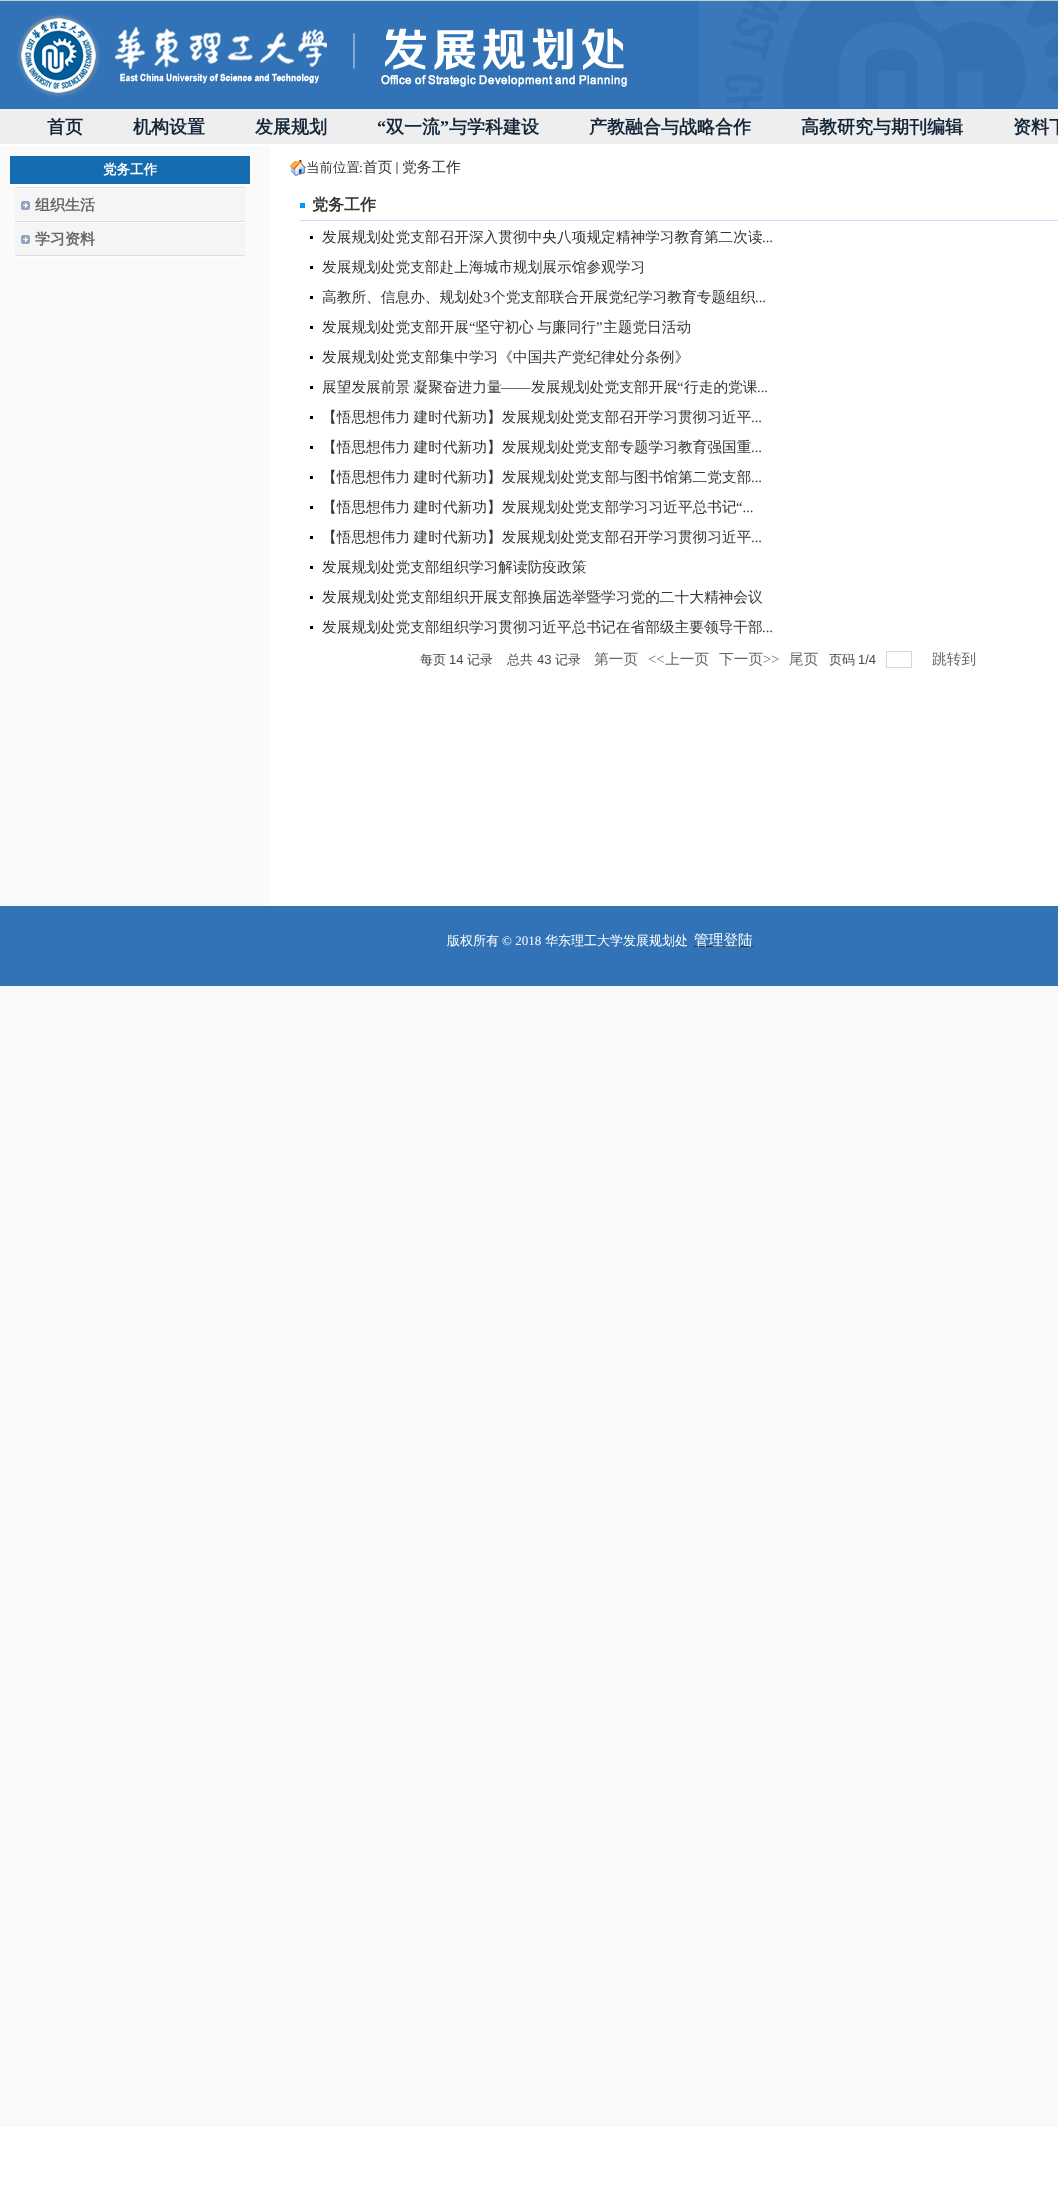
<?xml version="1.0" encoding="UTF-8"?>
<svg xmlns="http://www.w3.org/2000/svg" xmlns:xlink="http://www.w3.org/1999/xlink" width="1058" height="2200">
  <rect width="100%" height="100%" fill="#ffffff" />
  <image x="0" y="986" width="1058" height="1141" xlink:href="image1.png" />
  <image x="0" y="0" width="1058" height="109" xlink:href="image2.png" />
  <rect y="109" width="1058" height="35" fill="#eeeeee" />
  <rect y="146" width="270" height="760" fill="#fbfafa" />
  <rect x="10" y="156" width="240" height="28" fill="#166cb0" />
  <rect x="10" y="184" width="240" height="3" fill="#ffffff" />
  <rect x="15" y="187" width="230" height="1" fill="#dddddd" />
  <rect x="15" y="256" width="230" height="1" fill="#ffffff" />
  <rect x="15" y="189" width="230" height="32" fill="#f5f5f5" />
  <image x="21" y="201" width="9" height="9" xlink:href="image3.png" />
  <rect x="15" y="188" width="230" height="1" fill="#ffffff" />
  <rect x="15" y="221" width="230" height="1" fill="#dddddd" />
  <rect x="15" y="223" width="230" height="32" fill="#f5f5f5" />
  <image x="21" y="235" width="9" height="9" xlink:href="image3.png" />
  <rect x="15" y="222" width="230" height="1" fill="#ffffff" />
  <rect x="15" y="255" width="230" height="1" fill="#dddddd" />
  <image x="290" y="160" width="16" height="16" xlink:href="image4.png" />
  <rect x="396" y="162" width="2" height="12" fill="#a2a2a2" />
  <rect x="300" y="203" width="5" height="5" fill="#0099ff" />
  <rect x="300" y="220" width="758" height="1" fill="#c7e1f8" />
  <rect x="310" y="236" width="3" height="3" fill="#000000" />
  <rect x="310" y="266" width="3" height="3" fill="#000000" />
  <rect x="310" y="296" width="3" height="3" fill="#000000" />
  <rect x="310" y="326" width="3" height="3" fill="#000000" />
  <rect x="310" y="356" width="3" height="3" fill="#000000" />
  <rect x="310" y="386" width="3" height="3" fill="#000000" />
  <rect x="310" y="416" width="3" height="3" fill="#000000" />
  <rect x="310" y="446" width="3" height="3" fill="#000000" />
  <rect x="310" y="476" width="3" height="3" fill="#000000" />
  <rect x="310" y="506" width="3" height="3" fill="#000000" />
  <rect x="310" y="536" width="3" height="3" fill="#000000" />
  <rect x="310" y="566" width="3" height="3" fill="#000000" />
  <rect x="310" y="596" width="3" height="3" fill="#000000" />
  <rect x="310" y="626" width="3" height="3" fill="#000000" />
  <rect x="886.5" y="651.5" width="25" height="16" fill="none" stroke="#d5d5d5" />
  <rect y="906" width="1058" height="80" fill="#3273b7" />
  <rect x="694" y="946" width="59" height="1" fill="#333333" />
  <text x="47" y="133" style="font-family: WenQuanYi Zen Hei; font-size: 18px; font-weight: bold; fill: #142639">首页</text>
  <text x="133" y="133" style="font-family: WenQuanYi Zen Hei; font-size: 18px; font-weight: bold; fill: #142639">机构设置</text>
  <text x="255" y="133" style="font-family: WenQuanYi Zen Hei; font-size: 18px; font-weight: bold; fill: #142639">发展规划</text>
  <text x="377" y="133" style="font-family: Liberation Serif; font-size: 18px; font-weight: bold; fill: #142639">“</text>
  <text x="386" y="133" style="font-family: WenQuanYi Zen Hei; font-size: 18px; font-weight: bold; fill: #142639">双一流</text>
  <text x="440" y="133" style="font-family: Liberation Serif; font-size: 18px; font-weight: bold; fill: #142639">”</text>
  <text x="449" y="133" style="font-family: WenQuanYi Zen Hei; font-size: 18px; font-weight: bold; fill: #142639">与学科建设</text>
  <text x="589" y="133" style="font-family: WenQuanYi Zen Hei; font-size: 18px; font-weight: bold; fill: #142639">产教融合与战略合作</text>
  <text x="801" y="133" style="font-family: WenQuanYi Zen Hei; font-size: 18px; font-weight: bold; fill: #142639">高教研究与期刊编辑</text>
  <text x="1013" y="133" style="font-family: WenQuanYi Zen Hei; font-size: 18px; font-weight: bold; fill: #142639">资料下</text>
  <text x="103" y="174" style="font-family: WenQuanYi Zen Hei; font-size: 13.5px; font-weight: bold; fill: #ffffff">党务工作</text>
  <text x="35" y="210" style="font-family: WenQuanYi Zen Hei; font-size: 15px; font-weight: bold; fill: #666666">组织生活</text>
  <text x="35" y="244" style="font-family: WenQuanYi Zen Hei; font-size: 15px; font-weight: bold; fill: #666666">学习资料</text>
  <text x="306" y="172" style="font-family: WenQuanYi Zen Hei; font-size: 13.5px; font-weight: 500; fill: #333333">当前位置</text>
  <text x="359" y="172" style="font-family: Liberation Serif; font-size: 13.5px; fill: #333333">:</text>
  <text x="363" y="172" style="font-family: WenQuanYi Zen Hei; font-size: 14.7px; font-weight: 500; fill: #333333">首页</text>
  <text x="402" y="172" style="font-family: WenQuanYi Zen Hei; font-size: 14.7px; font-weight: 500; fill: #333333">党务工作</text>
  <text x="312" y="210" style="font-family: WenQuanYi Zen Hei; font-size: 16px; font-weight: bold; fill: #333333">党务工作</text>
  <text x="322" y="242" style="font-family: WenQuanYi Zen Hei; font-size: 14.7px; font-weight: 500; fill: #333333">发展规划处党支部召开深入贯彻中央八项规定精神学习教育第二次读</text>
  <text x="762" y="242" style="font-family: Liberation Serif; font-size: 14.7px; fill: #333333">...</text>
  <text x="322" y="272" style="font-family: WenQuanYi Zen Hei; font-size: 14.7px; font-weight: 500; fill: #333333">发展规划处党支部赴上海城市规划展示馆参观学习</text>
  <text x="322" y="302" style="font-family: WenQuanYi Zen Hei; font-size: 14.7px; font-weight: 500; fill: #333333">高教所、信息办、规划处</text>
  <text x="483" y="302" style="font-family: Liberation Serif; font-size: 14.7px; fill: #333333">3</text>
  <text x="491" y="302" style="font-family: WenQuanYi Zen Hei; font-size: 14.7px; font-weight: 500; fill: #333333">个党支部联合开展党纪学习教育专题组织</text>
  <text x="755" y="302" style="font-family: Liberation Serif; font-size: 14.7px; fill: #333333">...</text>
  <text x="322" y="332" style="font-family: WenQuanYi Zen Hei; font-size: 14.7px; font-weight: 500; fill: #333333">发展规划处党支部开展</text>
  <text x="469" y="332" style="font-family: Liberation Serif; font-size: 14.7px; fill: #333333">“</text>
  <text x="475" y="332" word-spacing="-1" style="font-family: WenQuanYi Zen Hei; font-size: 14.7px; font-weight: 500; fill: #333333">坚守初心 与廉同行</text>
  <text x="596" y="332" style="font-family: Liberation Serif; font-size: 14.7px; fill: #333333">”</text>
  <text x="603" y="332" style="font-family: WenQuanYi Zen Hei; font-size: 14.7px; font-weight: 500; fill: #333333">主题党日活动</text>
  <text x="322" y="362" style="font-family: WenQuanYi Zen Hei; font-size: 14.7px; font-weight: 500; fill: #333333">发展规划处党支部集中学习《中国共产党纪律处分条例》</text>
  <text x="322" y="392" word-spacing="-1" style="font-family: WenQuanYi Zen Hei; font-size: 14.7px; font-weight: 500; fill: #333333">展望发展前景 凝聚奋进力量</text>
  <text x="677" y="392" style="font-family: Liberation Serif; font-size: 14.7px; fill: #333333">“</text>
  <text x="684" y="392" style="font-family: WenQuanYi Zen Hei; font-size: 14.7px; font-weight: 500; fill: #333333">行走的党课</text>
  <text x="501" y="392" style="font-family: Liberation Serif; font-size: 14.7px; fill: #333333">——</text>
  <text x="531" y="392" style="font-family: WenQuanYi Zen Hei; font-size: 14.7px; font-weight: 500; fill: #333333">发展规划处党支部开展</text>
  <text x="757" y="392" style="font-family: Liberation Serif; font-size: 14.7px; fill: #333333">...</text>
  <text x="322" y="422" word-spacing="-1" style="font-family: WenQuanYi Zen Hei; font-size: 14.7px; font-weight: 500; fill: #333333">【悟思想伟力 建时代新功】发展规划处党支部召开学习贯彻习近平</text>
  <text x="751" y="422" style="font-family: Liberation Serif; font-size: 14.7px; fill: #333333">...</text>
  <text x="322" y="452" word-spacing="-1" style="font-family: WenQuanYi Zen Hei; font-size: 14.7px; font-weight: 500; fill: #333333">【悟思想伟力 建时代新功】发展规划处党支部专题学习教育强国重</text>
  <text x="751" y="452" style="font-family: Liberation Serif; font-size: 14.7px; fill: #333333">...</text>
  <text x="322" y="482" word-spacing="-1" style="font-family: WenQuanYi Zen Hei; font-size: 14.7px; font-weight: 500; fill: #333333">【悟思想伟力 建时代新功】发展规划处党支部与图书馆第二党支部</text>
  <text x="751" y="482" style="font-family: Liberation Serif; font-size: 14.7px; fill: #333333">...</text>
  <text x="322" y="512" word-spacing="-1" style="font-family: WenQuanYi Zen Hei; font-size: 14.7px; font-weight: 500; fill: #333333">【悟思想伟力 建时代新功】发展规划处党支部学习习近平总书记</text>
  <text x="736" y="512" style="font-family: Liberation Serif; font-size: 14.7px; fill: #333333">“...</text>
  <text x="322" y="542" word-spacing="-1" style="font-family: WenQuanYi Zen Hei; font-size: 14.7px; font-weight: 500; fill: #333333">【悟思想伟力 建时代新功】发展规划处党支部召开学习贯彻习近平</text>
  <text x="751" y="542" style="font-family: Liberation Serif; font-size: 14.7px; fill: #333333">...</text>
  <text x="322" y="572" style="font-family: WenQuanYi Zen Hei; font-size: 14.7px; font-weight: 500; fill: #333333">发展规划处党支部组织学习解读防疫政策</text>
  <text x="322" y="602" style="font-family: WenQuanYi Zen Hei; font-size: 14.7px; font-weight: 500; fill: #333333">发展规划处党支部组织开展支部换届选举暨学习党的二十大精神会议</text>
  <text x="322" y="632" style="font-family: WenQuanYi Zen Hei; font-size: 14.7px; font-weight: 500; fill: #333333">发展规划处党支部组织学习贯彻习近平总书记在省部级主要领导干部</text>
  <text x="762" y="632" style="font-family: Liberation Serif; font-size: 14.7px; fill: #333333">...</text>
  <text x="420" y="664" style="font-family: WenQuanYi Zen Hei; font-size: 13px; font-weight: 500; fill: #494949">每页</text>
  <text x="449" y="664" style="font-family: Liberation Sans; font-size: 13px; fill: #494949">14</text>
  <text x="467" y="664" style="font-family: WenQuanYi Zen Hei; font-size: 13px; font-weight: 500; fill: #494949">记录</text>
  <text x="507" y="664" style="font-family: WenQuanYi Zen Hei; font-size: 13px; font-weight: 500; fill: #494949">总共</text>
  <text x="537" y="664" style="font-family: Liberation Sans; font-size: 13px; fill: #494949">43</text>
  <text x="555" y="664" style="font-family: WenQuanYi Zen Hei; font-size: 13px; font-weight: 500; fill: #494949">记录</text>
  <text x="594" y="664" style="font-family: WenQuanYi Zen Hei; font-size: 14.7px; font-weight: 500; fill: #666666">第一页</text>
  <text x="648" y="664" style="font-family: Liberation Serif; font-size: 14.7px; fill: #666666">&lt;&lt;</text>
  <text x="665" y="664" style="font-family: WenQuanYi Zen Hei; font-size: 14.7px; font-weight: 500; fill: #666666">上一页</text>
  <text x="719" y="664" style="font-family: WenQuanYi Zen Hei; font-size: 14.7px; font-weight: 500; fill: #666666">下一页</text>
  <text x="763" y="664" style="font-family: Liberation Serif; font-size: 14.7px; fill: #666666">&gt;&gt;</text>
  <text x="789" y="664" style="font-family: WenQuanYi Zen Hei; font-size: 14.7px; font-weight: 500; fill: #666666">尾页</text>
  <text x="829" y="664" style="font-family: WenQuanYi Zen Hei; font-size: 13px; font-weight: 500; fill: #494949">页码</text>
  <text x="858" y="664" style="font-family: Liberation Sans; font-size: 13px; fill: #494949">1/4</text>
  <text x="932" y="664" style="font-family: WenQuanYi Zen Hei; font-size: 14.7px; font-weight: 500; fill: #666666">跳转到</text>
  <text x="447" y="945" style="font-family: WenQuanYi Zen Hei; font-size: 13px; font-weight: 500; fill: #ffffff">版权所有</text>
  <text x="502" y="945" style="font-family: Liberation Serif; font-size: 13px; fill: #ffffff">© 2018</text>
  <text x="545" y="945" style="font-family: WenQuanYi Zen Hei; font-size: 13px; font-weight: 500; fill: #ffffff">华东理工大学发展规划处</text>
  <text x="694" y="945" style="font-family: WenQuanYi Zen Hei; font-size: 14.7px; font-weight: 500; fill: #ffffff">管理登陆</text>
</svg>
